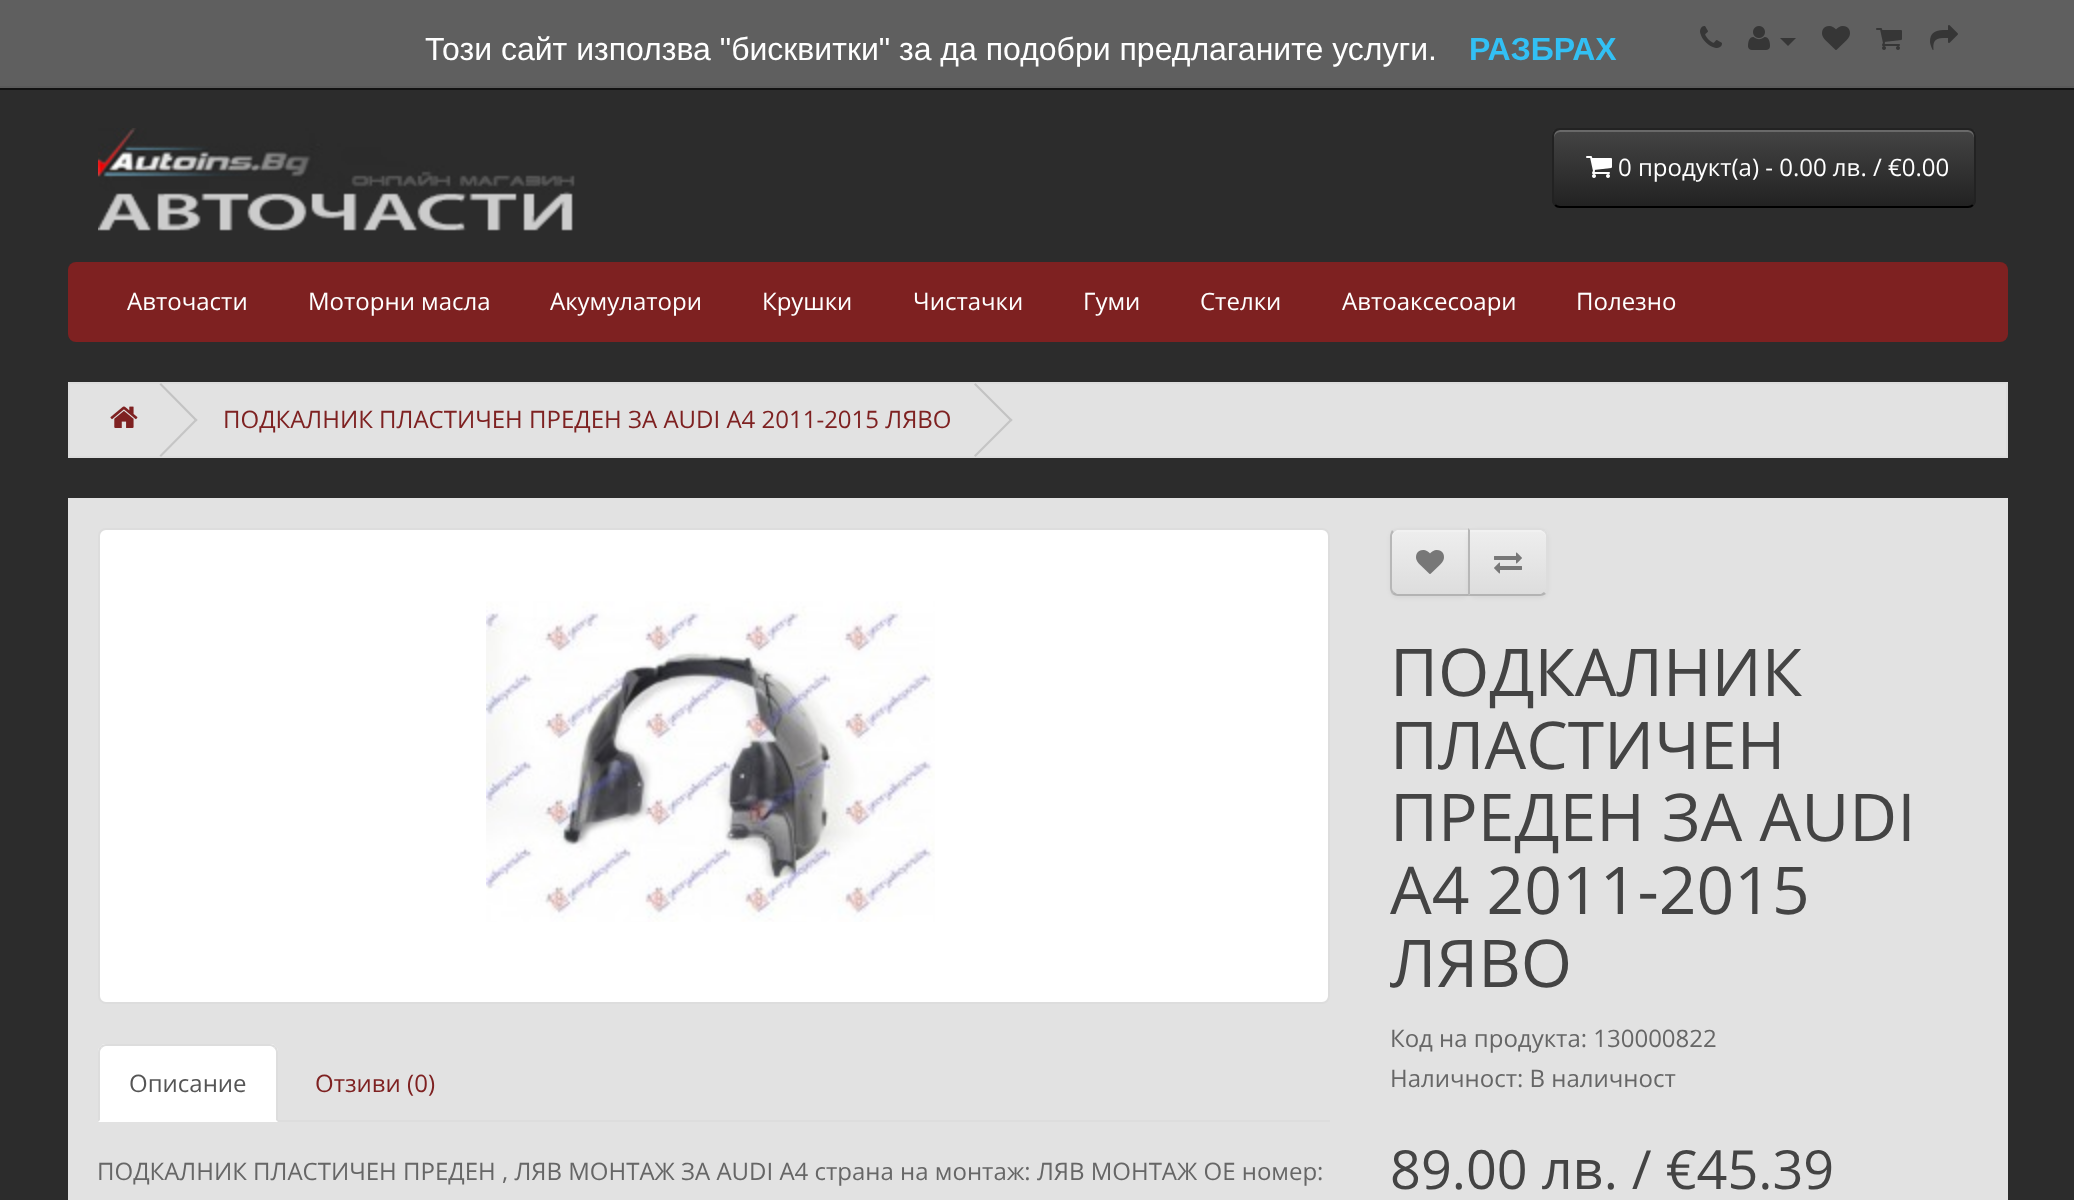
<?xml version="1.0" encoding="UTF-8"?>
<svg xmlns="http://www.w3.org/2000/svg" xmlns:xlink="http://www.w3.org/1999/xlink" width="2074" height="1200">
  <defs>
    <clipPath id="clip1"><rect x="1552" y="128" width="424" height="80" rx="8" /></clipPath>
    <linearGradient id="g1" gradientUnits="userSpaceOnUse" x1="1764" y1="130" x2="1764" y2="206"><stop offset="0" stop-color="#444444" /><stop offset="1" stop-color="#222222" /></linearGradient>
    <clipPath id="clip2"><path d="M 1398 528 h 72 v 68 h -72 c -4.5 0 -8 -3.5 -8 -8 v -52 c 0 -4.5 3.5 -8 8 -8 z" /></clipPath>
    <linearGradient id="g2" gradientUnits="userSpaceOnUse" x1="1430" y1="530" x2="1430" y2="594"><stop offset="0" stop-color="#eeeeee" /><stop offset="1" stop-color="#dddddd" /></linearGradient>
    <clipPath id="clip3"><path d="M 1468 528 h 72 c 4.5 0 8 3.5 8 8 v 52 c 0 4.5 -3.5 8 -8 8 h -72 z" /></clipPath>
    <linearGradient id="g3" gradientUnits="userSpaceOnUse" x1="1508" y1="530" x2="1508" y2="594"><stop offset="0" stop-color="#eeeeee" /><stop offset="1" stop-color="#dddddd" /></linearGradient>
  </defs>
  <rect width="100%" height="100%" fill="#2c2c2c" />
  <rect y="88" width="2074" height="2" fill="#121212" />
  <rect width="2074" height="86" fill="#5f5f5f" />
  <rect y="86" width="2074" height="2" fill="#5a5a5a" />
  <image x="1700" y="26" width="22" height="22" xlink:href="image1.png" />
  <image x="1748" y="26" width="22" height="24" xlink:href="image2.png" />
  <path d="M 1780 38 h 16 l -8 8 z" fill="#363636" />
  <image x="1822" y="26" width="28" height="24" xlink:href="image3.png" />
  <image x="1876" y="28" width="26" height="22" xlink:href="image4.png" />
  <image x="1930" y="25" width="28" height="25" xlink:href="image5.png" />
  <image x="98" y="128" width="477" height="103" xlink:href="image6.png" />
  <g clip-path="url(#clip1)">
    <rect x="1552" y="130" width="424" height="76" fill="url(#g1)" />
  </g>
  <path d="M 1560 132 h 408 c 3 0 6 3 6 6 v -2 c 0 -3 -3 -6 -6 -6 h -408 c -3 0 -6 3 -6 6 v 2 c 0 -3 3 -6 6 -6 z" fill="#696969" />
  <path d="M 1973 205 c -1.5 1.5 -3 2 -5 2 h -408 c -2 0 -3.5 -0.5 -5 -2" fill="none" stroke="#000000" stroke-width="2" />
  <path d="M 1555 205 c -1.5 -1.5 -2 -3 -2 -5 v -64 c 0 -2 0.5 -3.5 2 -5 c 1.5 -1.5 3 -2 5 -2 h 408 c 2 0 3.5 0.5 5 2 c 1.5 1.5 2 3 2 5 v 64 c 0 2 -0.5 3.5 -2 5" fill="none" stroke="#222222" stroke-width="2" />
  <image x="1586" y="156" width="26" height="22" xlink:href="image7.png" />
  <rect x="68" y="262" width="1940" height="80" rx="8" fill="#7e2121" />
  <rect x="69" y="383" width="1938" height="74" fill="#e2e2e2" stroke="#dddddd" stroke-width="2" />
  <image x="110" y="406" width="28" height="22" xlink:href="image8.png" />
  <path d="M 159.5 384.5 l 1.5 -1.5 l 36.5 37 l -1.5 1.5 z" fill="#c3c3c3" />
  <path d="M 159.5 455.5 l 36.5 -37 l 1.5 1.5 l -36.5 37 z" fill="#c5c5c5" />
  <path d="M 974 384.5 l 1.5 -1.5 l 37 37 l -1.5 1.5 z" fill="#c3c3c3" />
  <path d="M 974 455.5 l 37 -37 l 1.5 1.5 l -37 37 z" fill="#c5c5c5" />
  <rect x="68" y="498" width="1940" height="702" fill="#e2e2e2" />
  <rect x="99" y="529" width="1230" height="474" rx="7" fill="#ffffff" stroke="#dddddd" stroke-width="2" />
  <image x="486" y="601" width="449" height="321" xlink:href="image9.png" />
  <rect x="278" y="1120" width="1052" height="2" fill="#dddddd" />
  <path d="M 106 1044 h 164 c 4.5 0 8 3.5 8 8 v 70 h -180 v -70 c 0 -4.5 3.5 -8 8 -8 z" fill="#ffffff" />
  <path d="M 106 1044 c -2 0 -4 1 -6 2 l 2 2 c 1 -1 2 -2 4 -2 h 164 c 2 0 3 1 4 2 l 2 -2 c -2 -1 -4 -2 -6 -2 z" fill="#dddddd" />
  <path d="M 278 1122 v -70 c 0 -2 -1 -4 -2 -6 l -2 2 c 1 1 2 2 2 4 v 68 z" fill="#dddddd" />
  <path d="M 98 1122 l 2 -2 v -68 c 0 -2 1 -3 2 -4 l -2 -2 c -1 2 -2 4 -2 6 z" fill="#dddddd" />
  <rect x="1390" y="530" width="80" height="68" rx="8" fill="#000000" fill-opacity="0.05" filter="blur(2px)" />
  <g clip-path="url(#clip2)">
    <rect x="1390" y="530" width="78" height="64" fill="url(#g2)" />
  </g>
  <path d="M 1398 532 h 70 v -2 h -70 c -3 0 -6 3 -6 6 v 2 c 0 -3 3 -6 6 -6 z" fill="#f1f1f1" />
  <path d="M 1398 528 c -2 0 -4 1 -6 2 l 2 2 l 3 -2 h 71 l 2 -2 z" fill="#dddddd" />
  <path d="M 1470 596 l -2 -2 h -71 l -3 -2 l -2 2 c 2 1 4 2 6 2 z" fill="#b3b3b3" />
  <path d="M 1390 536 v 52 c 0 2 1 4 2 6 l 2 -2 c -1 -1 -2 -2 -2 -4 v -52 c 0 -2 1 -3 2 -4 l -2 -2 c -1 2 -2 4 -2 6 z" fill="#b7b7b7" />
  <image x="1416" y="550" width="28" height="24" xlink:href="image10.png" />
  <rect x="1468" y="530" width="80" height="68" rx="8" fill="#000000" fill-opacity="0.05" filter="blur(2px)" />
  <g clip-path="url(#clip3)">
    <rect x="1470" y="530" width="78" height="64" fill="url(#g3)" />
  </g>
  <path d="M 1470 532 h 70 c 3 0 6 3 6 6 v -2 c 0 -3 -3 -6 -6 -6 h -70 z" fill="#f1f1f1" />
  <path d="M 1468 528 l 2 2 h 71 l 3 2 l 2 -2 c -2 -1 -4 -2 -6 -2 z" fill="#dddddd" />
  <path d="M 1548 588 v -52 c 0 -2 -1 -4 -2 -6 l -2 2 c 1 1 2 2 2 4 v 52 c 0 2 -1 3 -2 4 l 2 2 c 1 -2 2 -4 2 -6 z" fill="#dddddd" />
  <path d="M 1540 596 c 2 0 4 -1 6 -2 l -2 -2 l -3 2 h -71 l -2 2 z" fill="#b3b3b3" />
  <path d="M 1468 528 v 68 l 2 -2 v -64 z" fill="#b7b7b7" />
  <image x="1494" y="552" width="28" height="22" xlink:href="image11.png" />
  <text x="425" y="60" style="font-family: Liberation Sans; font-size: 32px; fill: #ffffff">Този сайт използва "бисквитки" за да подобри предлаганите услуги.</text>
  <text x="1469" y="60" style="font-family: Liberation Sans; font-size: 32px; font-weight: bold; fill: #32c0f4">РАЗБРАХ</text>
  <text x="1618" y="176" style="font-family: Open Sans; font-size: 24px; fill: #ffffff">0 продукт(а) - 0.00 лв. / €0.00</text>
  <text x="127" y="310" style="font-family: Open Sans; font-size: 24px; fill: #ffffff">Авточасти</text>
  <text x="308" y="310" style="font-family: Open Sans; font-size: 24px; fill: #ffffff">Моторни масла</text>
  <text x="550" y="310" style="font-family: Open Sans; font-size: 24px; fill: #ffffff">Акумулатори</text>
  <text x="762" y="310" style="font-family: Open Sans; font-size: 24px; fill: #ffffff">Крушки</text>
  <text x="913" y="310" style="font-family: Open Sans; font-size: 24px; fill: #ffffff">Чистачки</text>
  <text x="1083" y="310" style="font-family: Open Sans; font-size: 24px; fill: #ffffff">Гуми</text>
  <text x="1200" y="310" style="font-family: Open Sans; font-size: 24px; fill: #ffffff">Стелки</text>
  <text x="1342" y="310" style="font-family: Open Sans; font-size: 24px; fill: #ffffff">Автоаксесоари</text>
  <text x="1576" y="310" style="font-family: Open Sans; font-size: 24px; fill: #ffffff">Полезно</text>
  <text x="223" y="428" style="font-family: Open Sans; font-size: 24px; fill: #7e2121">ПОДКАЛНИК ПЛАСТИЧЕН ПРЕДЕН ЗА AUDI A4 2011-2015 ЛЯВО</text>
  <text x="129" y="1092" style="font-family: Open Sans; font-size: 24px; fill: #555555">Описание</text>
  <text x="315" y="1092" style="font-family: Open Sans; font-size: 24px; fill: #7e2121">Отзиви (0)</text>
  <text x="97" y="1180" style="font-family: Open Sans; font-size: 24px; fill: #666666">ПОДКАЛНИК ПЛАСТИЧЕН ПРЕДЕН , ЛЯВ МОНТАЖ ЗА AUDI A4 страна на монтаж: ЛЯВ МОНТАЖ ОЕ номер:</text>
  <text x="1390" y="696" style="font-family: Open Sans; font-size: 66px; fill: #444444">ПОДКАЛНИК</text>
  <text x="1390" y="769" style="font-family: Open Sans; font-size: 66px; fill: #444444">ПЛАСТИЧЕН</text>
  <text x="1390" y="841" style="font-family: Open Sans; font-size: 66px; fill: #444444">ПРЕДЕН ЗА AUDI</text>
  <text x="1390" y="914" style="font-family: Open Sans; font-size: 66px; fill: #444444">A4 2011-2015</text>
  <text x="1390" y="987" style="font-family: Open Sans; font-size: 66px; fill: #444444">ЛЯВО</text>
  <text x="1390" y="1047" style="font-family: Open Sans; font-size: 24px; fill: #666666">Код на продукта: 130000822</text>
  <text x="1390" y="1087" style="font-family: Open Sans; font-size: 24px; fill: #666666">Наличност: В наличност</text>
  <text x="1390" y="1189" style="font-family: Open Sans; font-size: 54px; fill: #444444">89.00 лв. / €45.39</text>
</svg>
